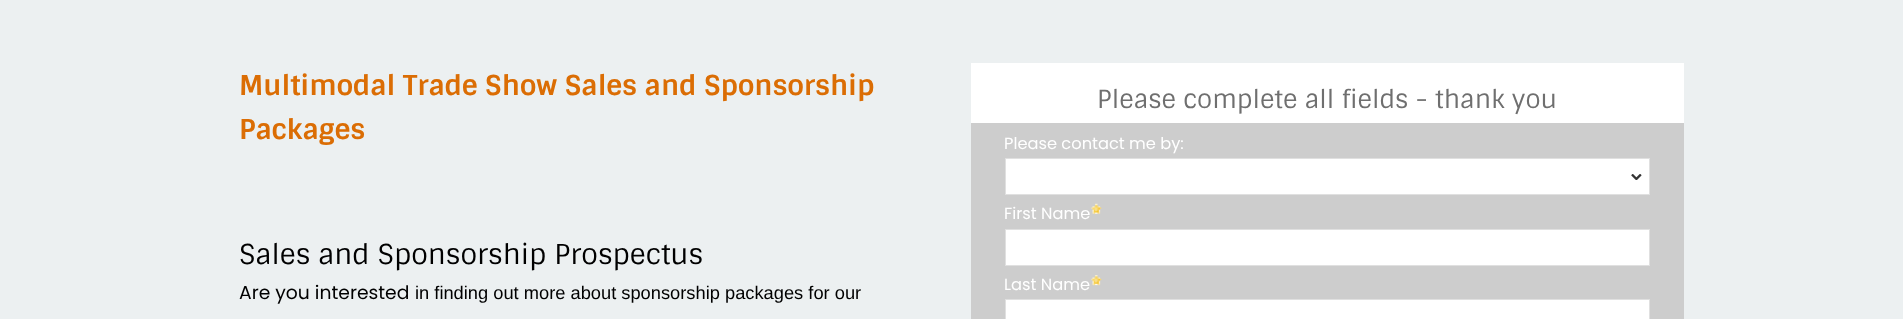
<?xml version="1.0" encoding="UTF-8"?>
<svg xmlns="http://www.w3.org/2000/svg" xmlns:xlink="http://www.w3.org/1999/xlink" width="1903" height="319">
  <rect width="100%" height="100%" fill="#ecf0f1" />
  <rect x="971" y="63" width="713" height="60" fill="#ffffff" />
  <rect x="971" y="123" width="713" height="196" fill="#cdcdcd" />
  <rect x="1006" y="159" width="643" height="35" fill="#ffffff" />
  <image x="1631" y="174" width="11" height="6" xlink:href="image1.png" />
  <rect x="1005.5" y="158.5" width="644" height="36" fill="none" stroke="#e0e0e0" />
  <image x="1091" y="203" width="11" height="11" xlink:href="image2.png" />
  <rect x="1005.5" y="229.5" width="644" height="36" fill="#ffffff" stroke="#e0e0e0" />
  <image x="1091" y="275" width="11" height="11" xlink:href="image3.png" />
  <rect x="1005.5" y="299.5" width="644" height="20" fill="#ffffff" stroke="#e0e0e0" />
  <text x="239" y="95" style="font-family: Sintony; font-size: 27.5px; font-weight: bold; fill: #db6d04">Multimodal Trade Show Sales and Sponsorship</text>
  <text x="239" y="139" style="font-family: Sintony; font-size: 27.5px; font-weight: bold; fill: #db6d04">Packages</text>
  <text x="239" y="264" style="font-family: Sintony; font-size: 27.5px; fill: #000000">Sales and Sponsorship Prospectus</text>
  <text x="239" y="299" style="font-family: Poppins; font-size: 18.75px; fill: #000000">Are you interested</text>
  <text x="415" y="299" style="font-family: Liberation Sans; font-size: 18.3px; fill: #000000">in finding out more about sponsorship packages for our</text>
  <text x="1097" y="108" style="font-family: Sintony; font-size: 25px; fill: #6f6f6f">Please complete all fields - thank you</text>
  <text x="1004" y="149" style="font-family: Poppins; font-size: 16.25px; fill: #ffffff">Please contact me by:</text>
  <text x="1004" y="219" style="font-family: Poppins; font-size: 16.25px; fill: #ffffff">First Name</text>
  <text x="1004" y="290" style="font-family: Poppins; font-size: 16.25px; fill: #ffffff">Last Name</text>
</svg>
